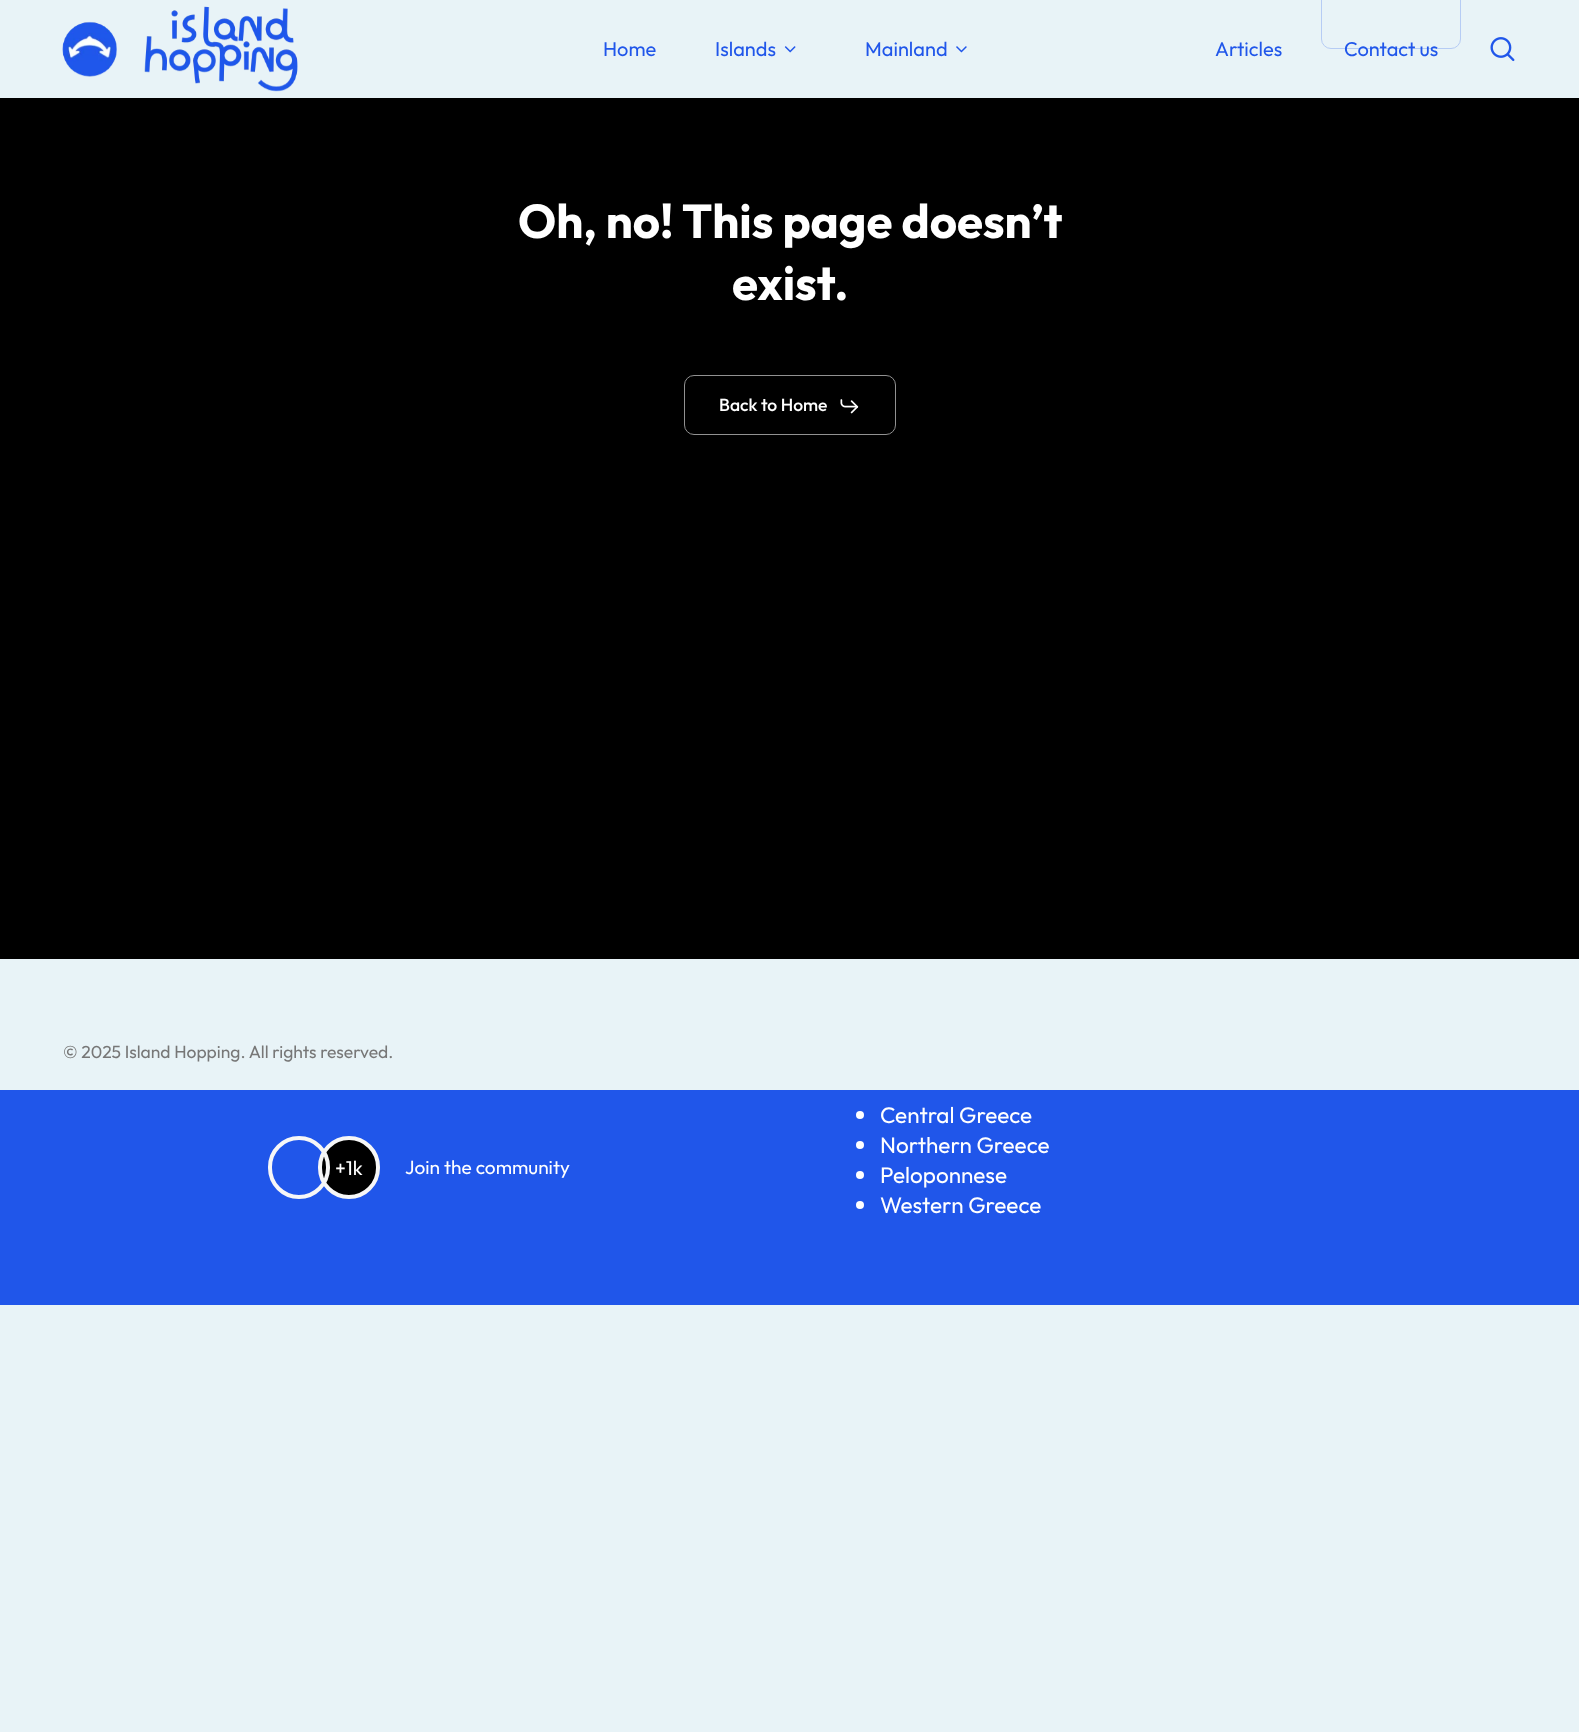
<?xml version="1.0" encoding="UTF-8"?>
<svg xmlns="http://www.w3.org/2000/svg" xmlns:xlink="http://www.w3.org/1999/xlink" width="1579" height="1732">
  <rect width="100%" height="100%" fill="#e8f3f7" />
  <image x="62" y="6" width="236" height="86" xlink:href="image1.png" />
  <image x="784" y="46" width="12" height="7" xlink:href="image2.png" />
  <image x="956" y="46" width="11" height="7" xlink:href="image3.png" />
  <rect x="1321.5" y="-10.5" width="139" height="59" rx="9.5" fill="none" stroke="#b6ccf4" />
  <image x="1490" y="37" width="25" height="25" xlink:href="image4.png" />
  <rect y="98" width="1579" height="861" fill="#000000" />
  <rect x="684.5" y="375.5" width="211" height="59" rx="9.5" fill="none" stroke="#919191" />
  <image x="840" y="399" width="19" height="15" xlink:href="image5.png" />
  <rect y="1090" width="1579" height="215" fill="#2056ea" />
  <rect x="320" y="1138" width="58" height="59" rx="29" fill="#000000" stroke="#f7f7f7" stroke-width="4" />
  <rect x="270" y="1138" width="58" height="59" rx="29" fill="none" stroke="#f7f7f7" stroke-width="4" />
  <circle cx="860" cy="1115" r="4" fill="#ffffff" />
  <circle cx="860" cy="1145" r="4" fill="#ffffff" />
  <circle cx="860" cy="1175" r="4" fill="#ffffff" />
  <circle cx="860" cy="1205" r="4" fill="#ffffff" />
  <text x="603" y="56" style="font-family: Outfit; font-size: 20px; fill: #2056ea">Home</text>
  <text x="715" y="56" style="font-family: Outfit; font-size: 20px; fill: #2056ea">Islands</text>
  <text x="865" y="56" style="font-family: Outfit; font-size: 20px; fill: #2056ea">Mainland</text>
  <text x="1215" y="56" style="font-family: Outfit; font-size: 20px; fill: #2056ea">Articles</text>
  <text x="1344" y="56" style="font-family: Outfit; font-size: 20px; fill: #2056ea">Contact us</text>
  <text x="518" y="238" style="font-family: Outfit; font-size: 47.4px; font-weight: bold; fill: #ffffff">Oh, no! This page doesn’t</text>
  <text x="732" y="300" style="font-family: Outfit; font-size: 47.4px; font-weight: bold; fill: #ffffff">exist.</text>
  <text x="719" y="411" style="font-family: Outfit; font-size: 17.5px; font-weight: 500; fill: #ffffff">Back to Home</text>
  <text x="63" y="1058" style="font-family: Outfit; font-size: 17.5px; fill: #777777">© 2025 Island Hopping. All rights reserved.</text>
  <text x="335" y="1175" style="font-family: Outfit; font-size: 20px; fill: #ffffff">+1k</text>
  <text x="405" y="1174" style="font-family: Outfit; font-size: 19.1px; fill: #ffffff">Join the community</text>
  <text x="880" y="1123" style="font-family: Outfit; font-size: 22.5px; fill: #ffffff">Central Greece</text>
  <text x="880" y="1153" style="font-family: Outfit; font-size: 22.5px; fill: #ffffff">Northern Greece</text>
  <text x="880" y="1183" style="font-family: Outfit; font-size: 22.5px; fill: #ffffff">Peloponnese</text>
  <text x="880" y="1213" style="font-family: Outfit; font-size: 22.5px; fill: #ffffff">Western Greece</text>
</svg>
